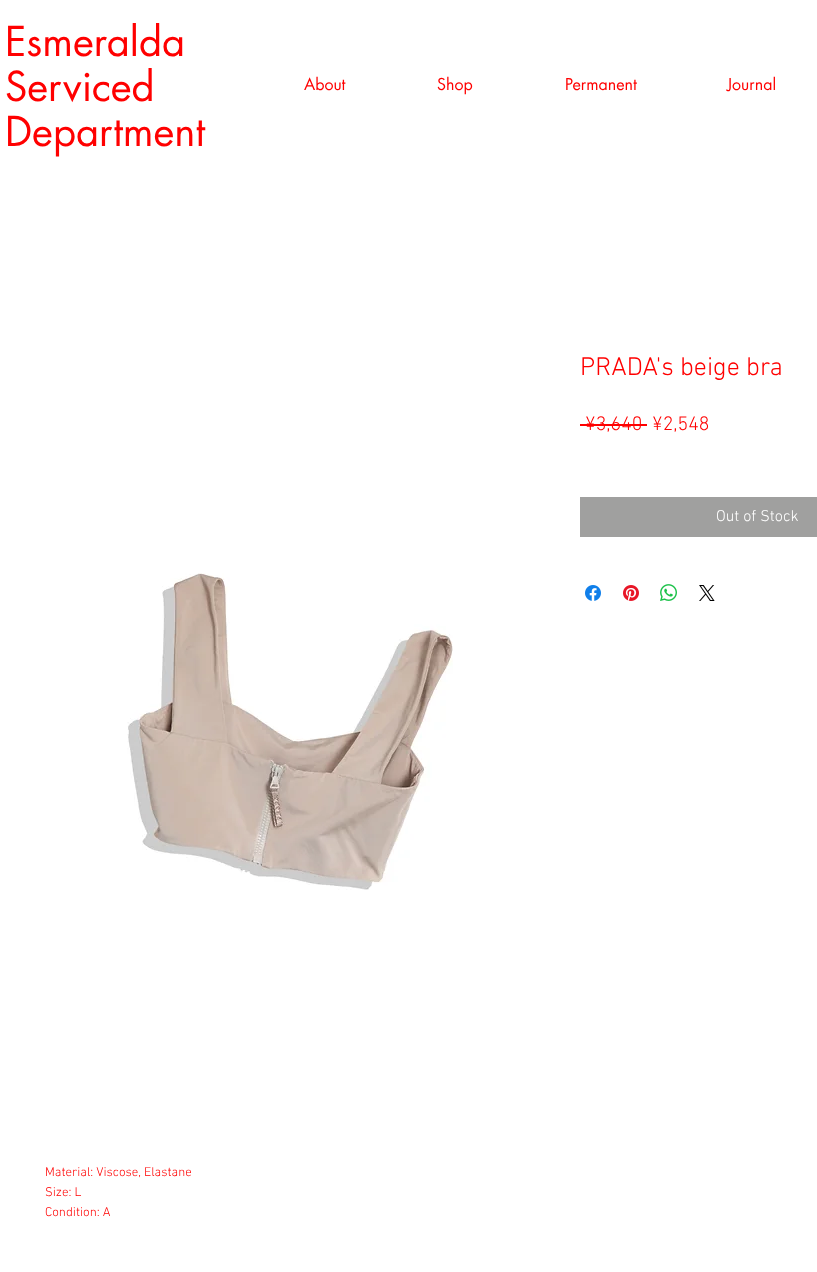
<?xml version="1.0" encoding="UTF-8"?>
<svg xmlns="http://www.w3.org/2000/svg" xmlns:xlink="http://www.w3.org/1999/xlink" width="817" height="1272">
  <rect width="100%" height="100%" fill="#ffffff" />
  <rect x="580" y="424" width="67" height="2" fill="#ff0000" />
  <rect x="580" y="497" width="237" height="40" fill="#a0a09f" />
  <image x="585" y="585" width="16" height="16" xlink:href="image1.png" />
  <image x="623" y="585" width="16" height="16" xlink:href="image2.png" />
  <image x="660" y="584" width="17" height="17" xlink:href="image3.png" />
  <image x="699" y="585" width="16" height="16" xlink:href="image4.png" />
  <image x="127" y="573" width="326" height="317" xlink:href="image5.png" />
  <text x="5" y="56" style="font-family: futura; font-size: 40px; fill: #ff0000">Esmeralda</text>
  <text x="5" y="101" style="font-family: futura; font-size: 40px; fill: #ff0000">Serviced</text>
  <text x="5" y="146" style="font-family: futura; font-size: 40px; fill: #ff0000">Department</text>
  <text x="304" y="90" style="font-family: futura; font-size: 16px; fill: #ff0000">About</text>
  <text x="437" y="90" style="font-family: futura; font-size: 16px; fill: #ff0000">Shop</text>
  <text x="565" y="90" style="font-family: futura; font-size: 16px; fill: #ff0000">Permanent</text>
  <text x="727" y="90" style="font-family: futura; font-size: 16px; fill: #ff0000">Journal</text>
  <text x="580" y="375" style="font-family: 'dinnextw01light'; font-size: 26px; font-weight: 300; fill: #ff0000">PRADA's beige bra</text>
  <text x="585" y="430" style="font-family: 'dinnextw01light'; font-size: 20px; font-weight: 300; fill: #ff0000">¥3,640</text>
  <text x="652" y="430" style="font-family: 'dinnextw01light'; font-size: 20px; font-weight: 300; fill: #ff0000">¥2,548</text>
  <text x="716" y="521" style="font-family: 'dinnextw01light'; font-size: 16px; font-weight: 300; fill: #ffffff">Out of Stock</text>
  <text x="45" y="1176" style="font-family: 'dinnextw01light'; font-size: 13px; font-weight: 300; fill: #ff0000">Material: Viscose, Elastane</text>
  <text x="45" y="1196" style="font-family: 'dinnextw01light'; font-size: 13px; font-weight: 300; fill: #ff0000">Size: L</text>
  <text x="45" y="1216" style="font-family: 'dinnextw01light'; font-size: 13px; font-weight: 300; fill: #ff0000">Condition: A</text>
</svg>
